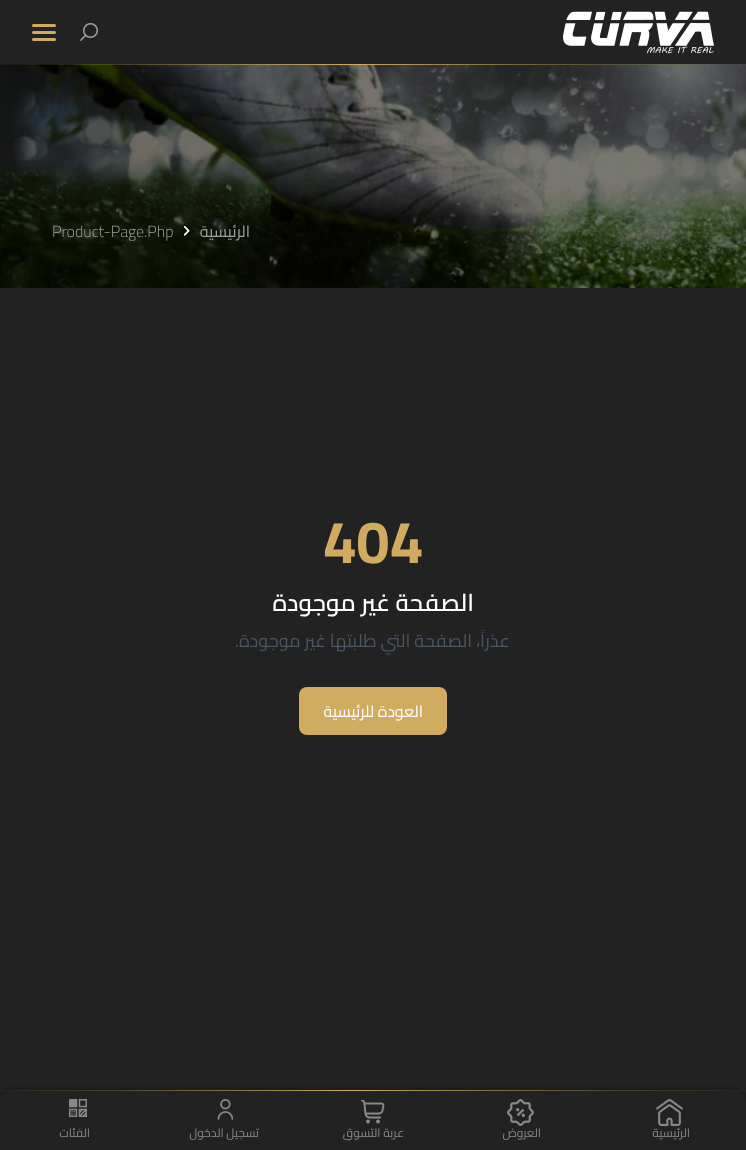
<?xml version="1.0" encoding="UTF-8"?>
<svg xmlns="http://www.w3.org/2000/svg" xmlns:xlink="http://www.w3.org/1999/xlink" width="746" height="1150">
  <defs>
    <linearGradient id="g1" gradientUnits="userSpaceOnUse" x1="0" y1="65" x2="746" y2="64"><stop offset="0" stop-color="#6a6d24" stop-opacity="0.09" /><stop offset="0.47" stop-color="#d1ab5f" /><stop offset="1" stop-color="#6a6d24" stop-opacity="0.09" /></linearGradient>
    <linearGradient id="g2" gradientUnits="userSpaceOnUse" x1="0" y1="1091" x2="746" y2="1091"><stop offset="0" stop-color="#6a6d24" stop-opacity="0.09" /><stop offset="0.47" stop-color="#d1ab5f" /><stop offset="1" stop-color="#6a6d24" stop-opacity="0.09" /></linearGradient>
  </defs>
  <rect width="100%" height="100%" fill="#222222" />
  <image x="563" y="11" width="151" height="43" xlink:href="image1.png" />
  <image x="80" y="23" width="18" height="18" xlink:href="image2.png" />
  <rect x="32" y="24" width="24" height="3" rx="1.5" fill="#d1ab5f" />
  <rect x="32" y="31" width="24" height="3" rx="1.5" fill="#d1ab5f" />
  <rect x="32" y="38" width="24" height="3" rx="1.5" fill="#d1ab5f" />
  <image x="0" y="64" width="746" height="224" xlink:href="image3.png" />
  <rect y="64" width="746" height="1" fill="url(#g1)" />
  <image x="183" y="226" width="7" height="10" xlink:href="image4.png" />
  <rect x="299" y="687" width="148" height="48" rx="8" fill="#d1ab5f" />
  <rect y="1089" width="746" height="60" rx="12" fill="#000000" fill-opacity="0.3" filter="blur(2px)" />
  <path d="M 12 1090 h 722 c 6.5 0 12 5.5 12 12 v 48 h -746 v -48 c 0 -6.5 5.5 -12 12 -12 z" fill="#222222" />
  <rect y="1090" width="746" height="1" fill="url(#g2)" />
  <image x="656" y="1099" width="27" height="27" xlink:href="image5.png" />
  <image x="507" y="1099" width="27" height="27" xlink:href="image6.png" />
  <image x="361" y="1100" width="24" height="24" xlink:href="image7.png" />
  <image x="217" y="1099" width="17" height="21" xlink:href="image8.png" />
  <image x="69" y="1099" width="18" height="18" xlink:href="image9.png" />
  <text x="250" y="237" style="font-family: Cairo; font-size: 16px; direction: rtl; fill: #9ea19c">الرئيسية</text>
  <text x="52" y="237" style="font-family: Cairo; font-size: 16px; font-weight: 300; fill: #9ea19c">Product-Page.Php</text>
  <text x="323" y="563" style="font-family: Cairo; font-size: 60px; font-weight: bold; fill: #d1ab5f">404</text>
  <text x="474" y="611" style="font-family: Cairo; font-size: 24px; font-weight: 600; direction: rtl; fill: #ffffff">الصفحة غير موجودة</text>
  <text x="510" y="647" style="font-family: Cairo; font-size: 18px; direction: rtl; fill: #4b5563">عذراً، الصفحة التي طلبتها غير موجودة.</text>
  <text x="423" y="717" style="font-family: Cairo; font-size: 16px; direction: rtl; fill: #ffffff">العودة للرئيسية</text>
  <text x="690" y="1137" style="font-family: Cairo; font-size: 12px; direction: rtl; fill: #888888">الرئيسية</text>
  <text x="541" y="1137" style="font-family: Cairo; font-size: 12px; direction: rtl; fill: #888888">العروض</text>
  <text x="404" y="1137" style="font-family: Cairo; font-size: 12px; direction: rtl; fill: #888888">عربة التسوق</text>
  <text x="259" y="1137" style="font-family: Cairo; font-size: 12px; direction: rtl; fill: #888888">تسجيل الدخول</text>
  <text x="90" y="1137" style="font-family: Cairo; font-size: 12px; direction: rtl; fill: #888888">الفئات</text>
</svg>
